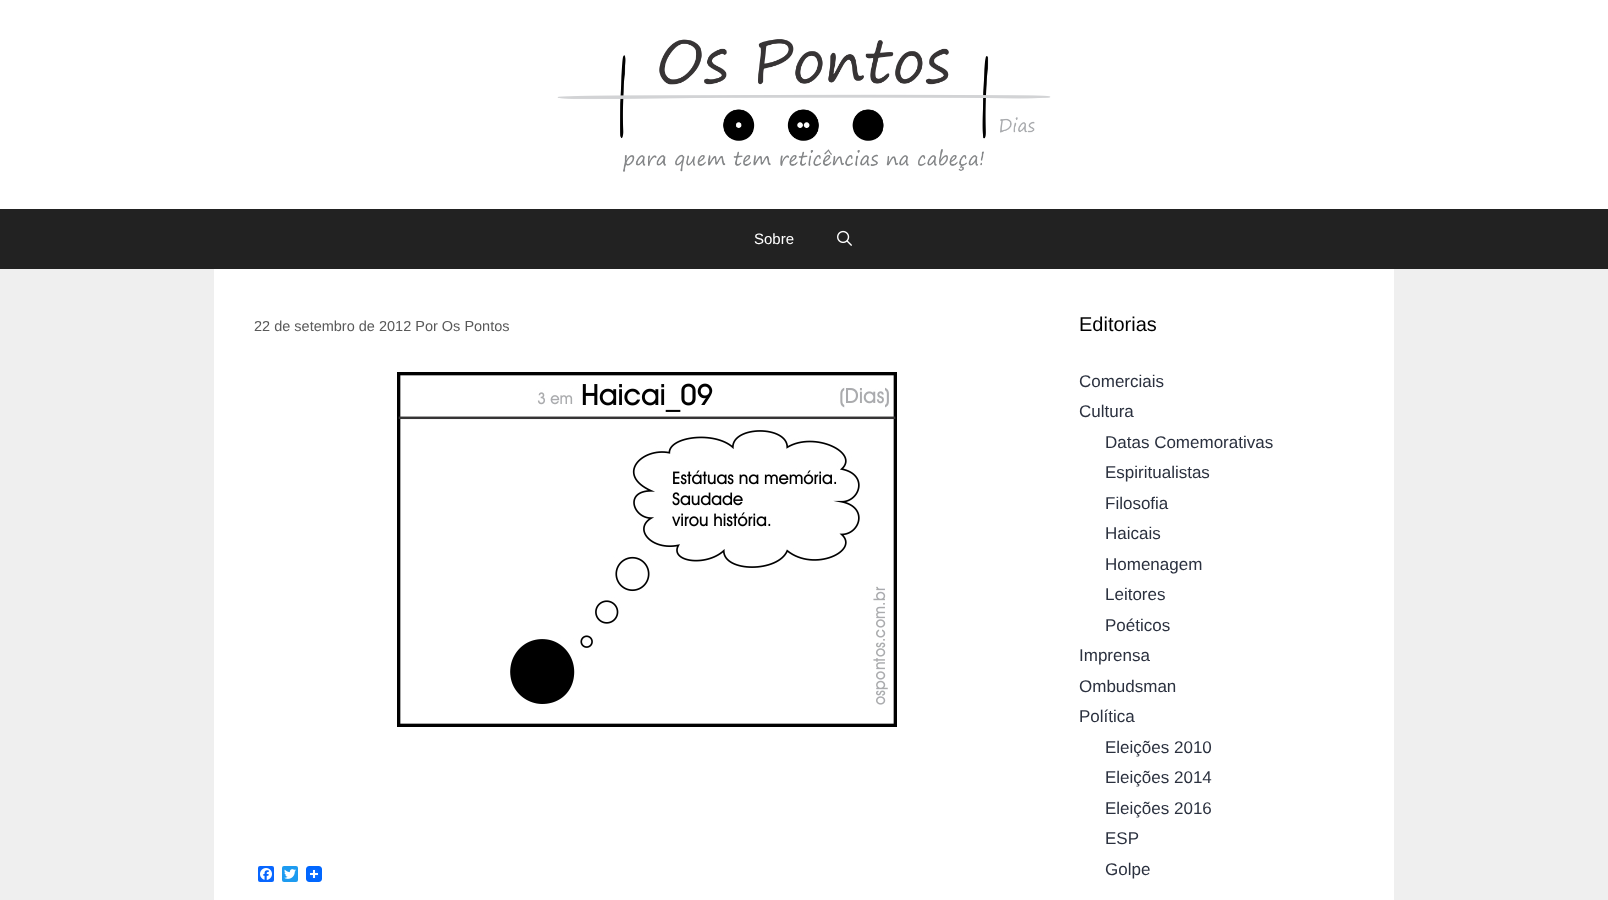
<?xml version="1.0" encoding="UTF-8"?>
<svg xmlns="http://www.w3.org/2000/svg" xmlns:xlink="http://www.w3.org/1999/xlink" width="1608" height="900">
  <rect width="100%" height="100%" fill="#efefef" />
  <rect width="1608" height="209" fill="#ffffff" />
  <image x="557" y="39" width="494" height="133" xlink:href="image1.png" />
  <rect y="209" width="1608" height="60" fill="#222222" />
  <image x="837" y="230" width="15" height="16" xlink:href="image2.png" />
  <rect x="214" y="269" width="1180" height="631" fill="#ffffff" />
  <image x="397" y="372" width="500" height="355" xlink:href="image3.png" />
  <rect x="258" y="866" width="16" height="16" rx="2" fill="#0866ff" />
  <image x="260" y="868" width="12" height="12" xlink:href="image4.png" />
  <rect x="282" y="866" width="16" height="16" rx="2" fill="#1d9bf0" />
  <image x="284" y="869" width="12" height="10" xlink:href="image5.png" />
  <image x="306" y="866" width="16" height="16" xlink:href="image6.png" />
  <text x="754" y="244" style="font-family: Liberation Sans; font-size: 15px; fill: #ffffff">Sobre</text>
  <text x="254" y="331" style="font-family: Liberation Sans; font-size: 14.5px; fill: #595959">22 de setembro de 2012 Por Os Pontos</text>
  <text x="1079" y="331" style="font-family: Liberation Sans; font-size: 20px; fill: #000000">Editorias</text>
  <text x="1079" y="387" style="font-family: Liberation Sans; font-size: 17px; fill: #2b313f">Comerciais</text>
  <text x="1079" y="417" style="font-family: Liberation Sans; font-size: 17px; fill: #2b313f">Cultura</text>
  <text x="1105" y="448" style="font-family: Liberation Sans; font-size: 17px; fill: #2b313f">Datas Comemorativas</text>
  <text x="1105" y="478" style="font-family: Liberation Sans; font-size: 17px; fill: #2b313f">Espiritualistas</text>
  <text x="1105" y="509" style="font-family: Liberation Sans; font-size: 17px; fill: #2b313f">Filosofia</text>
  <text x="1105" y="539" style="font-family: Liberation Sans; font-size: 17px; fill: #2b313f">Haicais</text>
  <text x="1105" y="570" style="font-family: Liberation Sans; font-size: 17px; fill: #2b313f">Homenagem</text>
  <text x="1105" y="600" style="font-family: Liberation Sans; font-size: 17px; fill: #2b313f">Leitores</text>
  <text x="1105" y="631" style="font-family: Liberation Sans; font-size: 17px; fill: #2b313f">Poéticos</text>
  <text x="1079" y="661" style="font-family: Liberation Sans; font-size: 17px; fill: #2b313f">Imprensa</text>
  <text x="1079" y="692" style="font-family: Liberation Sans; font-size: 17px; fill: #2b313f">Ombudsman</text>
  <text x="1079" y="722" style="font-family: Liberation Sans; font-size: 17px; fill: #2b313f">Política</text>
  <text x="1105" y="753" style="font-family: Liberation Sans; font-size: 17px; fill: #2b313f">Eleições 2010</text>
  <text x="1105" y="783" style="font-family: Liberation Sans; font-size: 17px; fill: #2b313f">Eleições 2014</text>
  <text x="1105" y="814" style="font-family: Liberation Sans; font-size: 17px; fill: #2b313f">Eleições 2016</text>
  <text x="1105" y="844" style="font-family: Liberation Sans; font-size: 17px; fill: #2b313f">ESP</text>
  <text x="1105" y="875" style="font-family: Liberation Sans; font-size: 17px; fill: #2b313f">Golpe</text>
</svg>
